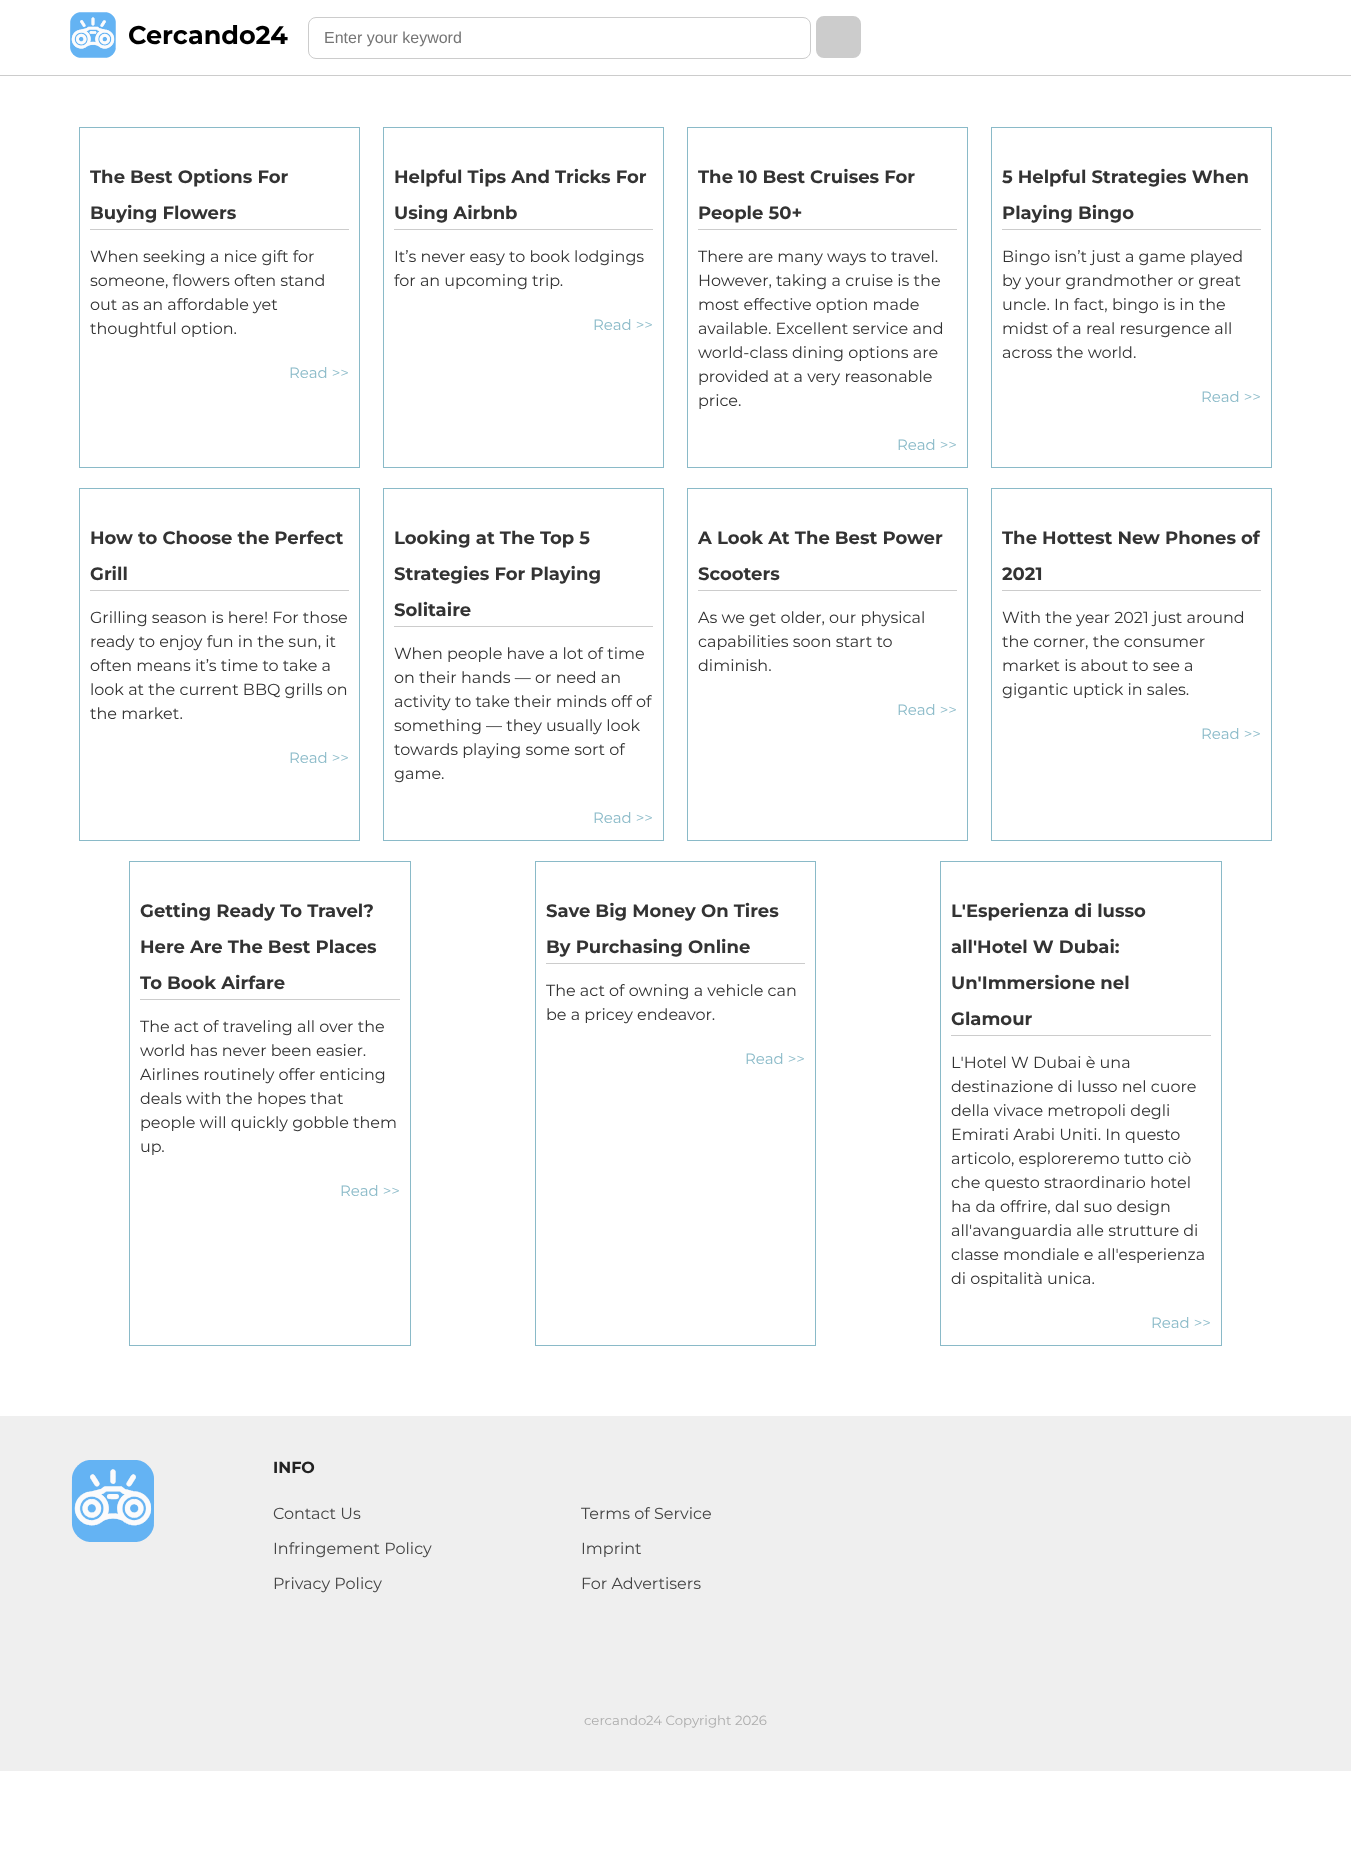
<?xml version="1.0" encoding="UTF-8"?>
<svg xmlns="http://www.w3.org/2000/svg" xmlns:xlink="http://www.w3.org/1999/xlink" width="1351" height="1851">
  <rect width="100%" height="100%" fill="#ffffff" />
  <rect y="75" width="1351" height="1" fill="#cccccc" />
  <image x="70" y="12" width="46" height="46" xlink:href="image1.png" />
  <rect x="308.5" y="17.5" width="502" height="41" rx="7.5" fill="none" stroke="#cccccc" />
  <rect x="817" y="17" width="43" height="40" rx="7" fill="#cccccc" stroke="#cccccc" stroke-width="2" />
  <rect x="79.5" y="127.5" width="280" height="340" fill="none" stroke="#8abac8" />
  <rect x="90" y="229" width="259" height="1" fill="#cccccc" />
  <rect x="383.5" y="127.5" width="280" height="340" fill="none" stroke="#8abac8" />
  <rect x="394" y="229" width="259" height="1" fill="#cccccc" />
  <rect x="687.5" y="127.5" width="280" height="340" fill="none" stroke="#8abac8" />
  <rect x="698" y="229" width="259" height="1" fill="#cccccc" />
  <rect x="991.5" y="127.5" width="280" height="340" fill="none" stroke="#8abac8" />
  <rect x="1002" y="229" width="259" height="1" fill="#cccccc" />
  <rect x="79.5" y="488.5" width="280" height="352" fill="none" stroke="#8abac8" />
  <rect x="90" y="590" width="259" height="1" fill="#cccccc" />
  <rect x="383.5" y="488.5" width="280" height="352" fill="none" stroke="#8abac8" />
  <rect x="394" y="626" width="259" height="1" fill="#cccccc" />
  <rect x="687.5" y="488.5" width="280" height="352" fill="none" stroke="#8abac8" />
  <rect x="698" y="590" width="259" height="1" fill="#cccccc" />
  <rect x="991.5" y="488.5" width="280" height="352" fill="none" stroke="#8abac8" />
  <rect x="1002" y="590" width="259" height="1" fill="#cccccc" />
  <rect x="129.5" y="861.5" width="281" height="484" fill="none" stroke="#8abac8" />
  <rect x="140" y="999" width="260" height="1" fill="#cccccc" />
  <rect x="535.5" y="861.5" width="280" height="484" fill="none" stroke="#8abac8" />
  <rect x="546" y="963" width="259" height="1" fill="#cccccc" />
  <rect x="940.5" y="861.5" width="281" height="484" fill="none" stroke="#8abac8" />
  <rect x="951" y="1035" width="260" height="1" fill="#cccccc" />
  <rect y="1416" width="1351" height="355" fill="#efefef" />
  <image x="71" y="1460" width="84" height="82" xlink:href="image2.png" />
  <text x="128" y="44" style="font-family: Montserrat; font-size: 25.5px; font-weight: bold; fill: #000000">Cercando24</text>
  <text x="324" y="43" style="font-family: Liberation Sans; font-size: 16px; fill: #757575">Enter your keyword</text>
  <text x="90" y="183" style="font-family: Montserrat; font-size: 18px; font-weight: bold; fill: #333333">The Best Options For</text>
  <text x="90" y="219" style="font-family: Montserrat; font-size: 18px; font-weight: bold; fill: #333333">Buying Flowers</text>
  <text x="90" y="262" style="font-family: Montserrat; font-size: 16px; fill: #333333">When seeking a nice gift for</text>
  <text x="90" y="286" style="font-family: Montserrat; font-size: 16px; fill: #333333">someone, flowers often stand</text>
  <text x="90" y="310" style="font-family: Montserrat; font-size: 16px; fill: #333333">out as an affordable yet</text>
  <text x="90" y="334" style="font-family: Montserrat; font-size: 16px; fill: #333333">thoughtful option.</text>
  <text x="289" y="378" style="font-family: Montserrat; font-size: 15px; fill: #8abac8">Read &gt;&gt;</text>
  <text x="394" y="183" style="font-family: Montserrat; font-size: 18px; font-weight: bold; fill: #333333">Helpful Tips And Tricks For</text>
  <text x="394" y="219" style="font-family: Montserrat; font-size: 18px; font-weight: bold; fill: #333333">Using Airbnb</text>
  <text x="394" y="262" style="font-family: Montserrat; font-size: 16px; fill: #333333">It’s never easy to book lodgings</text>
  <text x="394" y="286" style="font-family: Montserrat; font-size: 16px; fill: #333333">for an upcoming trip.</text>
  <text x="593" y="330" style="font-family: Montserrat; font-size: 15px; fill: #8abac8">Read &gt;&gt;</text>
  <text x="698" y="183" style="font-family: Montserrat; font-size: 18px; font-weight: bold; fill: #333333">The 10 Best Cruises For</text>
  <text x="698" y="219" style="font-family: Montserrat; font-size: 18px; font-weight: bold; fill: #333333">People 50+</text>
  <text x="698" y="262" style="font-family: Montserrat; font-size: 16px; fill: #333333">There are many ways to travel.</text>
  <text x="698" y="286" style="font-family: Montserrat; font-size: 16px; fill: #333333">However, taking a cruise is the</text>
  <text x="698" y="310" style="font-family: Montserrat; font-size: 16px; fill: #333333">most effective option made</text>
  <text x="698" y="334" style="font-family: Montserrat; font-size: 16px; fill: #333333">available. Excellent service and</text>
  <text x="698" y="358" style="font-family: Montserrat; font-size: 16px; fill: #333333">world-class dining options are</text>
  <text x="698" y="382" style="font-family: Montserrat; font-size: 16px; fill: #333333">provided at a very reasonable</text>
  <text x="698" y="406" style="font-family: Montserrat; font-size: 16px; fill: #333333">price.</text>
  <text x="897" y="450" style="font-family: Montserrat; font-size: 15px; fill: #8abac8">Read &gt;&gt;</text>
  <text x="1002" y="183" style="font-family: Montserrat; font-size: 18px; font-weight: bold; fill: #333333">5 Helpful Strategies When</text>
  <text x="1002" y="219" style="font-family: Montserrat; font-size: 18px; font-weight: bold; fill: #333333">Playing Bingo</text>
  <text x="1002" y="262" style="font-family: Montserrat; font-size: 16px; fill: #333333">Bingo isn’t just a game played</text>
  <text x="1002" y="286" style="font-family: Montserrat; font-size: 16px; fill: #333333">by your grandmother or great</text>
  <text x="1002" y="310" style="font-family: Montserrat; font-size: 16px; fill: #333333">uncle. In fact, bingo is in the</text>
  <text x="1002" y="334" style="font-family: Montserrat; font-size: 16px; fill: #333333">midst of a real resurgence all</text>
  <text x="1002" y="358" style="font-family: Montserrat; font-size: 16px; fill: #333333">across the world.</text>
  <text x="1201" y="402" style="font-family: Montserrat; font-size: 15px; fill: #8abac8">Read &gt;&gt;</text>
  <text x="90" y="544" style="font-family: Montserrat; font-size: 18px; font-weight: bold; fill: #333333">How to Choose the Perfect</text>
  <text x="90" y="580" style="font-family: Montserrat; font-size: 18px; font-weight: bold; fill: #333333">Grill</text>
  <text x="90" y="623" style="font-family: Montserrat; font-size: 16px; fill: #333333">Grilling season is here! For those</text>
  <text x="90" y="647" style="font-family: Montserrat; font-size: 16px; fill: #333333">ready to enjoy fun in the sun, it</text>
  <text x="90" y="671" style="font-family: Montserrat; font-size: 16px; fill: #333333">often means it’s time to take a</text>
  <text x="90" y="695" style="font-family: Montserrat; font-size: 16px; fill: #333333">look at the current BBQ grills on</text>
  <text x="90" y="719" style="font-family: Montserrat; font-size: 16px; fill: #333333">the market.</text>
  <text x="289" y="763" style="font-family: Montserrat; font-size: 15px; fill: #8abac8">Read &gt;&gt;</text>
  <text x="394" y="544" style="font-family: Montserrat; font-size: 18px; font-weight: bold; fill: #333333">Looking at The Top 5</text>
  <text x="394" y="580" style="font-family: Montserrat; font-size: 18px; font-weight: bold; fill: #333333">Strategies For Playing</text>
  <text x="394" y="616" style="font-family: Montserrat; font-size: 18px; font-weight: bold; fill: #333333">Solitaire</text>
  <text x="394" y="659" style="font-family: Montserrat; font-size: 16px; fill: #333333">When people have a lot of time</text>
  <text x="394" y="683" style="font-family: Montserrat; font-size: 16px; fill: #333333">on their hands — or need an</text>
  <text x="394" y="707" style="font-family: Montserrat; font-size: 16px; fill: #333333">activity to take their minds off of</text>
  <text x="394" y="731" style="font-family: Montserrat; font-size: 16px; fill: #333333">something — they usually look</text>
  <text x="394" y="755" style="font-family: Montserrat; font-size: 16px; fill: #333333">towards playing some sort of</text>
  <text x="394" y="779" style="font-family: Montserrat; font-size: 16px; fill: #333333">game.</text>
  <text x="593" y="823" style="font-family: Montserrat; font-size: 15px; fill: #8abac8">Read &gt;&gt;</text>
  <text x="698" y="544" style="font-family: Montserrat; font-size: 18px; font-weight: bold; fill: #333333">A Look At The Best Power</text>
  <text x="698" y="580" style="font-family: Montserrat; font-size: 18px; font-weight: bold; fill: #333333">Scooters</text>
  <text x="698" y="623" style="font-family: Montserrat; font-size: 16px; fill: #333333">As we get older, our physical</text>
  <text x="698" y="647" style="font-family: Montserrat; font-size: 16px; fill: #333333">capabilities soon start to</text>
  <text x="698" y="671" style="font-family: Montserrat; font-size: 16px; fill: #333333">diminish.</text>
  <text x="897" y="715" style="font-family: Montserrat; font-size: 15px; fill: #8abac8">Read &gt;&gt;</text>
  <text x="1002" y="544" style="font-family: Montserrat; font-size: 18px; font-weight: bold; fill: #333333">The Hottest New Phones of</text>
  <text x="1002" y="580" style="font-family: Montserrat; font-size: 18px; font-weight: bold; fill: #333333">2021</text>
  <text x="1002" y="623" style="font-family: Montserrat; font-size: 16px; fill: #333333">With the year 2021 just around</text>
  <text x="1002" y="647" style="font-family: Montserrat; font-size: 16px; fill: #333333">the corner, the consumer</text>
  <text x="1002" y="671" style="font-family: Montserrat; font-size: 16px; fill: #333333">market is about to see a</text>
  <text x="1002" y="695" style="font-family: Montserrat; font-size: 16px; fill: #333333">gigantic uptick in sales.</text>
  <text x="1201" y="739" style="font-family: Montserrat; font-size: 15px; fill: #8abac8">Read &gt;&gt;</text>
  <text x="140" y="917" style="font-family: Montserrat; font-size: 18px; font-weight: bold; fill: #333333">Getting Ready To Travel?</text>
  <text x="140" y="953" style="font-family: Montserrat; font-size: 18px; font-weight: bold; fill: #333333">Here Are The Best Places</text>
  <text x="140" y="989" style="font-family: Montserrat; font-size: 18px; font-weight: bold; fill: #333333">To Book Airfare</text>
  <text x="140" y="1032" style="font-family: Montserrat; font-size: 16px; fill: #333333">The act of traveling all over the</text>
  <text x="140" y="1056" style="font-family: Montserrat; font-size: 16px; fill: #333333">world has never been easier.</text>
  <text x="140" y="1080" style="font-family: Montserrat; font-size: 16px; fill: #333333">Airlines routinely offer enticing</text>
  <text x="140" y="1104" style="font-family: Montserrat; font-size: 16px; fill: #333333">deals with the hopes that</text>
  <text x="140" y="1128" style="font-family: Montserrat; font-size: 16px; fill: #333333">people will quickly gobble them</text>
  <text x="140" y="1152" style="font-family: Montserrat; font-size: 16px; fill: #333333">up.</text>
  <text x="340" y="1196" style="font-family: Montserrat; font-size: 15px; fill: #8abac8">Read &gt;&gt;</text>
  <text x="546" y="917" style="font-family: Montserrat; font-size: 18px; font-weight: bold; fill: #333333">Save Big Money On Tires</text>
  <text x="546" y="953" style="font-family: Montserrat; font-size: 18px; font-weight: bold; fill: #333333">By Purchasing Online</text>
  <text x="546" y="996" style="font-family: Montserrat; font-size: 16px; fill: #333333">The act of owning a vehicle can</text>
  <text x="546" y="1020" style="font-family: Montserrat; font-size: 16px; fill: #333333">be a pricey endeavor.</text>
  <text x="745" y="1064" style="font-family: Montserrat; font-size: 15px; fill: #8abac8">Read &gt;&gt;</text>
  <text x="951" y="917" style="font-family: Montserrat; font-size: 18px; font-weight: bold; fill: #333333">L'Esperienza di lusso</text>
  <text x="951" y="953" style="font-family: Montserrat; font-size: 18px; font-weight: bold; fill: #333333">all'Hotel W Dubai:</text>
  <text x="951" y="989" style="font-family: Montserrat; font-size: 18px; font-weight: bold; fill: #333333">Un'Immersione nel</text>
  <text x="951" y="1025" style="font-family: Montserrat; font-size: 18px; font-weight: bold; fill: #333333">Glamour</text>
  <text x="951" y="1068" style="font-family: Montserrat; font-size: 16px; fill: #333333">L'Hotel W Dubai è una</text>
  <text x="951" y="1092" style="font-family: Montserrat; font-size: 16px; fill: #333333">destinazione di lusso nel cuore</text>
  <text x="951" y="1116" style="font-family: Montserrat; font-size: 16px; fill: #333333">della vivace metropoli degli</text>
  <text x="951" y="1140" style="font-family: Montserrat; font-size: 16px; fill: #333333">Emirati Arabi Uniti. In questo</text>
  <text x="951" y="1164" style="font-family: Montserrat; font-size: 16px; fill: #333333">articolo, esploreremo tutto ciò</text>
  <text x="951" y="1188" style="font-family: Montserrat; font-size: 16px; fill: #333333">che questo straordinario hotel</text>
  <text x="951" y="1212" style="font-family: Montserrat; font-size: 16px; fill: #333333">ha da offrire, dal suo design</text>
  <text x="951" y="1236" style="font-family: Montserrat; font-size: 16px; fill: #333333">all'avanguardia alle strutture di</text>
  <text x="951" y="1260" style="font-family: Montserrat; font-size: 16px; fill: #333333">classe mondiale e all'esperienza</text>
  <text x="951" y="1284" style="font-family: Montserrat; font-size: 16px; fill: #333333">di ospitalità unica.</text>
  <text x="1151" y="1328" style="font-family: Montserrat; font-size: 15px; fill: #8abac8">Read &gt;&gt;</text>
  <text x="273" y="1473" style="font-family: Montserrat; font-size: 16px; font-weight: bold; fill: #222222">INFO</text>
  <text x="273" y="1519" style="font-family: Montserrat; font-size: 16px; fill: #444444">Contact Us</text>
  <text x="581" y="1519" style="font-family: Montserrat; font-size: 16px; fill: #444444">Terms of Service</text>
  <text x="273" y="1554" style="font-family: Montserrat; font-size: 16px; fill: #444444">Infringement Policy</text>
  <text x="581" y="1554" style="font-family: Montserrat; font-size: 16px; fill: #444444">Imprint</text>
  <text x="273" y="1589" style="font-family: Montserrat; font-size: 16px; fill: #444444">Privacy Policy</text>
  <text x="581" y="1589" style="font-family: Montserrat; font-size: 16px; fill: #444444">For Advertisers</text>
  <text x="584" y="1725" style="font-family: Montserrat; font-size: 13.3px; fill: #acacac">cercando24 Copyright 2026</text>
</svg>
